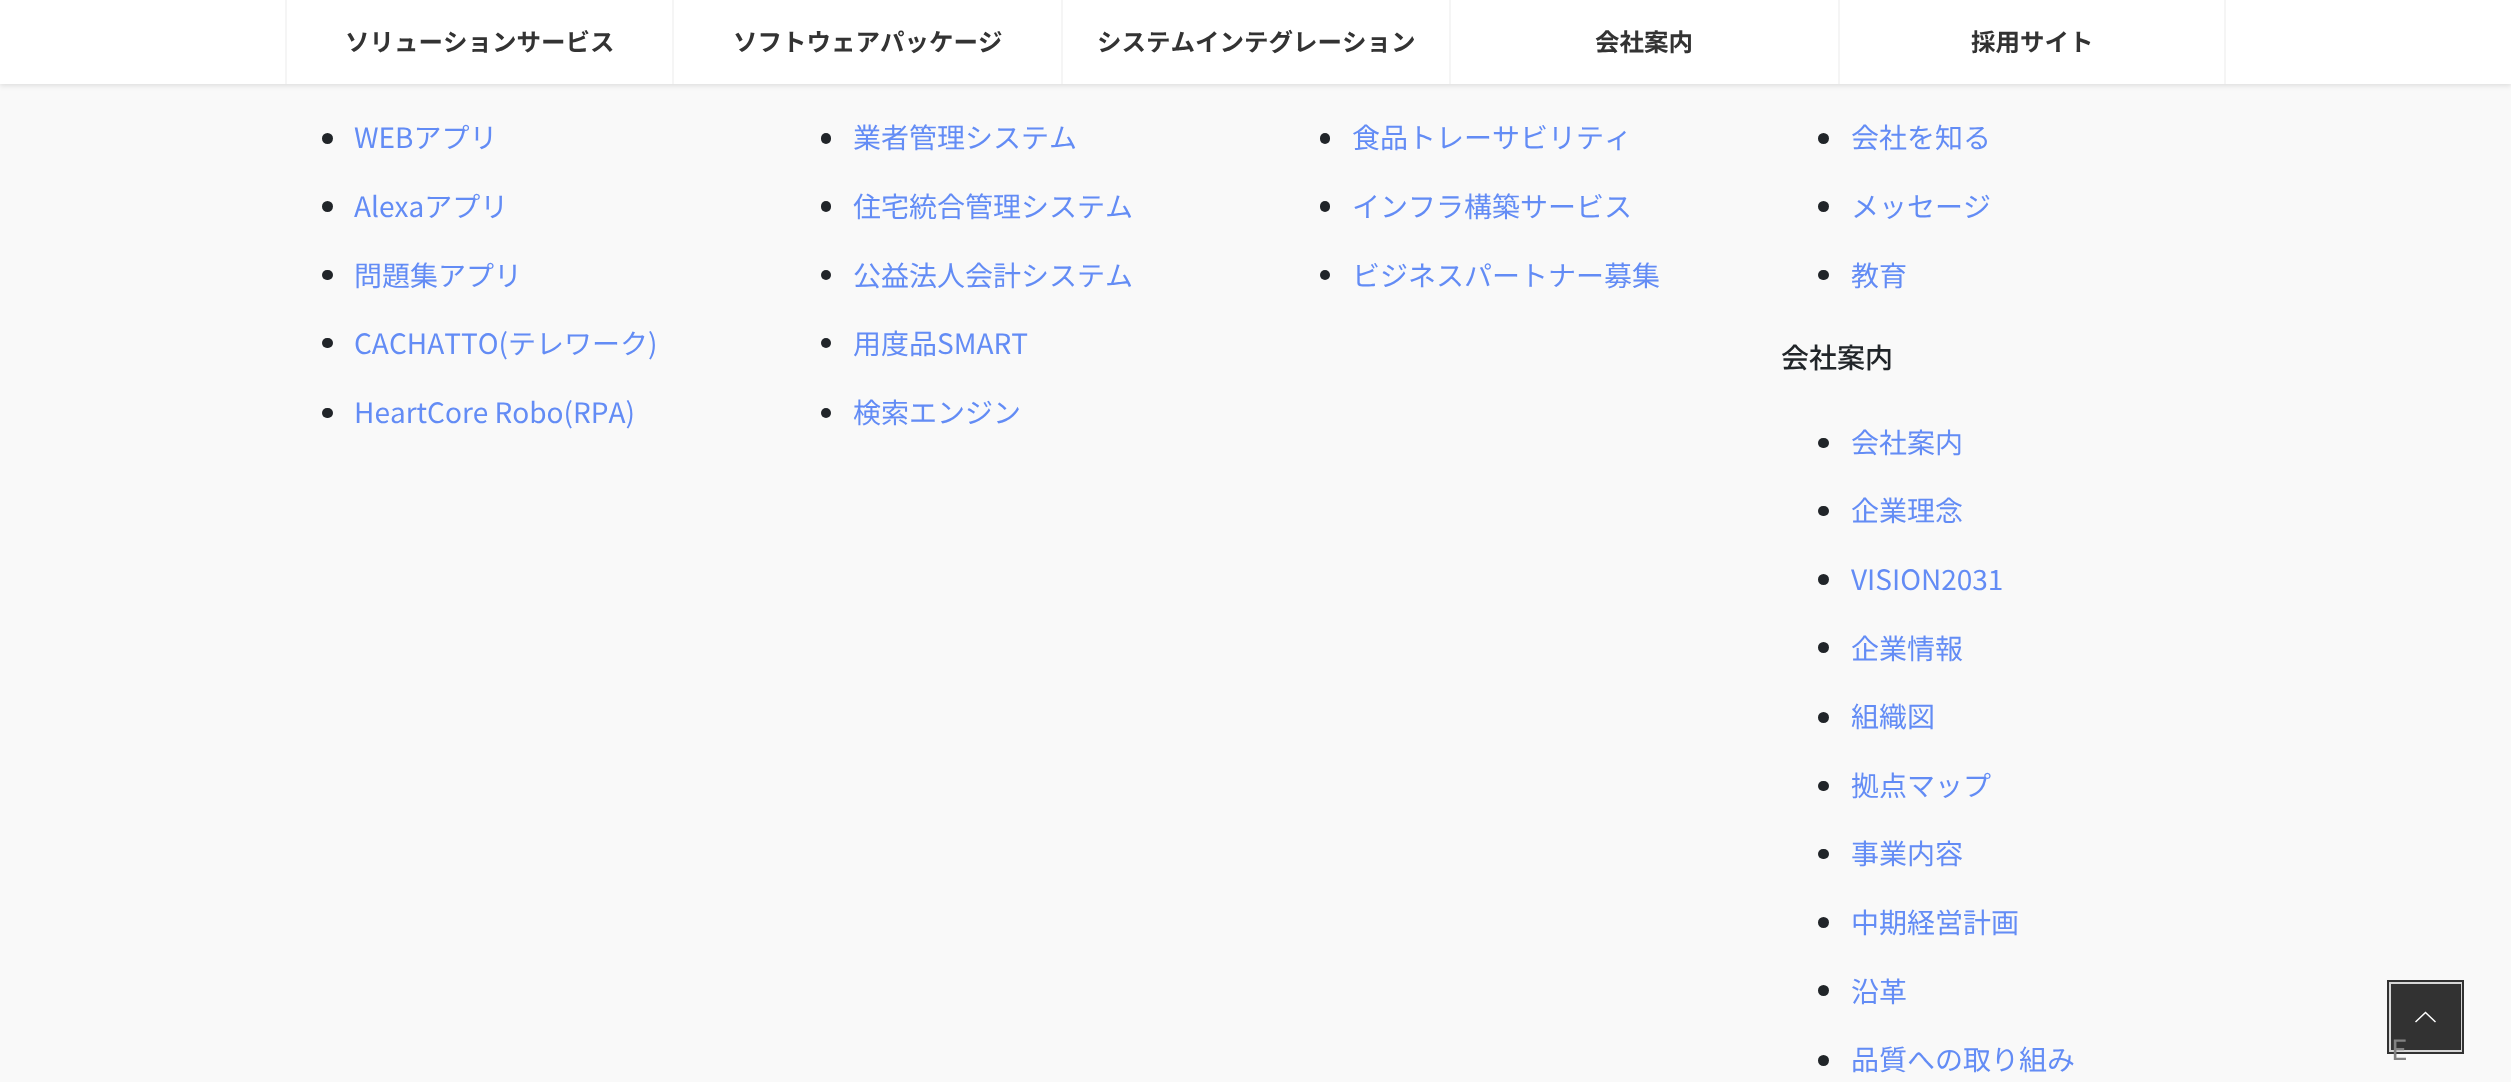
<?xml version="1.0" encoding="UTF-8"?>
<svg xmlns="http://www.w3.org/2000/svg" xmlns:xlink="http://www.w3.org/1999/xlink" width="2511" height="1082">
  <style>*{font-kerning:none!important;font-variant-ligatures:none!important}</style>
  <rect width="100%" height="100%" fill="#f9f9f9" />
  <rect y="2" width="2511" height="84" fill="#000000" fill-opacity="0.1" filter="blur(2.5px)" />
  <rect width="2511" height="84" fill="#ffffff" />
  <rect x="285" width="2" height="84" fill="#f5f5f5" />
  <rect x="672" width="2" height="84" fill="#f5f5f5" />
  <rect x="1061" width="2" height="84" fill="#f5f5f5" />
  <rect x="1449" width="2" height="84" fill="#f5f5f5" />
  <rect x="2224" width="2" height="84" fill="#f5f5f5" />
  <rect x="1838" width="2" height="84" fill="#f5f5f5" />
  <circle cx="327.5" cy="138.5" r="5.5" fill="#212529" />
  <circle cx="327.5" cy="206.5" r="5.5" fill="#212529" />
  <rect x="322" y="270" width="11" height="10" rx="5" fill="#212529" />
  <rect x="322" y="338" width="11" height="10" rx="5" fill="#212529" />
  <rect x="322" y="408" width="11" height="10" rx="5" fill="#212529" />
  <rect x="821" y="133" width="10" height="11" rx="5" fill="#212529" />
  <rect x="821" y="201" width="10" height="11" rx="5" fill="#212529" />
  <circle cx="826" cy="275" r="5" fill="#212529" />
  <circle cx="826" cy="343" r="5" fill="#212529" />
  <circle cx="826" cy="413" r="5" fill="#212529" />
  <rect x="1320" y="133" width="10" height="11" rx="5" fill="#212529" />
  <rect x="1320" y="201" width="10" height="11" rx="5" fill="#212529" />
  <circle cx="1325" cy="275" r="5" fill="#212529" />
  <circle cx="1823.5" cy="138.5" r="5.5" fill="#212529" />
  <circle cx="1823.5" cy="206.5" r="5.5" fill="#212529" />
  <rect x="1818" y="270" width="11" height="10" rx="5" fill="#212529" />
  <rect x="1818" y="438" width="11" height="10" rx="5" fill="#212529" />
  <rect x="1818" y="506" width="11" height="10" rx="5" fill="#212529" />
  <circle cx="1823.5" cy="579.5" r="5.5" fill="#212529" />
  <circle cx="1823.5" cy="647.5" r="5.5" fill="#212529" />
  <circle cx="1823.5" cy="717.5" r="5.5" fill="#212529" />
  <rect x="1818" y="781" width="11" height="10" rx="5" fill="#212529" />
  <rect x="1818" y="849" width="11" height="10" rx="5" fill="#212529" />
  <circle cx="1823.5" cy="922.5" r="5.5" fill="#212529" />
  <circle cx="1823.5" cy="990.5" r="5.5" fill="#212529" />
  <circle cx="1823.5" cy="1060.5" r="5.5" fill="#212529" />
  <rect x="2389" y="982" width="73" height="70" fill="none" stroke="#323232" stroke-width="4" />
  <rect x="2390" y="983" width="71" height="68" fill="none" stroke="#d6d6d6" stroke-width="2" />
  <rect x="2391" y="984" width="70" height="66" fill="#000000" fill-opacity="0.8" />
  <path d="M 2436 1021.5 l -1 1 l -9.5 -9 l -9.5 9 l -1 -1 l 10.5 -10 z" fill="#ffffff" />
  <text x="345" y="51" style="font-family: Noto Sans JP; font-size: 24.5px; font-weight: bold; fill: #333333">ソリューションサービス</text>
  <text x="733" y="51" style="font-family: Noto Sans JP; font-size: 24.5px; font-weight: bold; fill: #333333">ソフトウェアパッケージ</text>
  <text x="1097" y="51" style="font-family: Noto Sans JP; font-size: 24.5px; font-weight: bold; fill: #333333">システムインテグレーション</text>
  <text x="1595" y="51" style="font-family: Noto Sans JP; font-size: 24.5px; font-weight: bold; fill: #333333">会社案内</text>
  <text x="1971" y="51" style="font-family: Noto Sans JP; font-size: 24.5px; font-weight: bold; fill: #333333">採用サイト</text>
  <text x="354" y="148" style="font-family: Noto Sans JP; font-size: 28px; fill: #638cf5">WEBアプリ</text>
  <text x="354" y="217" style="font-family: Noto Sans JP; font-size: 28px; fill: #638cf5">Alexaアプリ</text>
  <text x="354" y="286" style="font-family: Noto Sans JP; font-size: 28px; fill: #638cf5">問題集アプリ</text>
  <text x="354" y="354" style="font-family: Noto Sans JP; font-size: 28px; fill: #638cf5">CACHATTO(テレワーク)</text>
  <text x="354" y="423" style="font-family: Noto Sans JP; font-size: 28px; fill: #638cf5">HeartCore Robo(RPA)</text>
  <text x="853" y="148" style="font-family: Noto Sans JP; font-size: 28px; fill: #638cf5">業者管理システム</text>
  <text x="853" y="217" style="font-family: Noto Sans JP; font-size: 28px; fill: #638cf5">住宅統合管理システム</text>
  <text x="853" y="286" style="font-family: Noto Sans JP; font-size: 28px; fill: #638cf5">公益法人会計システム</text>
  <text x="853" y="354" style="font-family: Noto Sans JP; font-size: 28px; fill: #638cf5">用度品SMART</text>
  <text x="853" y="423" style="font-family: Noto Sans JP; font-size: 28px; fill: #638cf5">検索エンジン</text>
  <text x="1352" y="148" style="font-family: Noto Sans JP; font-size: 28px; fill: #638cf5">食品トレーサビリティ</text>
  <text x="1352" y="217" style="font-family: Noto Sans JP; font-size: 28px; fill: #638cf5">インフラ構築サービス</text>
  <text x="1352" y="286" style="font-family: Noto Sans JP; font-size: 28px; fill: #638cf5">ビジネスパートナー募集</text>
  <text x="1851" y="148" style="font-family: Noto Sans JP; font-size: 28px; fill: #638cf5">会社を知る</text>
  <text x="1851" y="217" style="font-family: Noto Sans JP; font-size: 28px; fill: #638cf5">メッセージ</text>
  <text x="1851" y="286" style="font-family: Noto Sans JP; font-size: 28px; fill: #638cf5">教育</text>
  <text x="1781" y="368" style="font-family: Noto Sans JP; font-size: 28px; font-weight: 500; fill: #212529">会社案内</text>
  <text x="1851" y="453" style="font-family: Noto Sans JP; font-size: 28px; fill: #638cf5">会社案内</text>
  <text x="1851" y="521" style="font-family: Noto Sans JP; font-size: 28px; fill: #638cf5">企業理念</text>
  <text x="1851" y="590" style="font-family: Noto Sans JP; font-size: 28px; fill: #638cf5">VISION2031</text>
  <text x="1851" y="659" style="font-family: Noto Sans JP; font-size: 28px; fill: #638cf5">企業情報</text>
  <text x="1851" y="727" style="font-family: Noto Sans JP; font-size: 28px; fill: #638cf5">組織図</text>
  <text x="1851" y="796" style="font-family: Noto Sans JP; font-size: 28px; fill: #638cf5">拠点マップ</text>
  <text x="1851" y="864" style="font-family: Noto Sans JP; font-size: 28px; fill: #638cf5">事業内容</text>
  <text x="1851" y="933" style="font-family: Noto Sans JP; font-size: 28px; fill: #638cf5">中期経営計画</text>
  <text x="1851" y="1002" style="font-family: Noto Sans JP; font-size: 28px; fill: #638cf5">沿革</text>
  <text x="1851" y="1070" style="font-family: Noto Sans JP; font-size: 28px; fill: #638cf5">品質への取り組み</text>
  <text x="2391" y="1060" style="font-family: Noto Sans JP; font-size: 28px; fill: #818181">E</text>
</svg>
